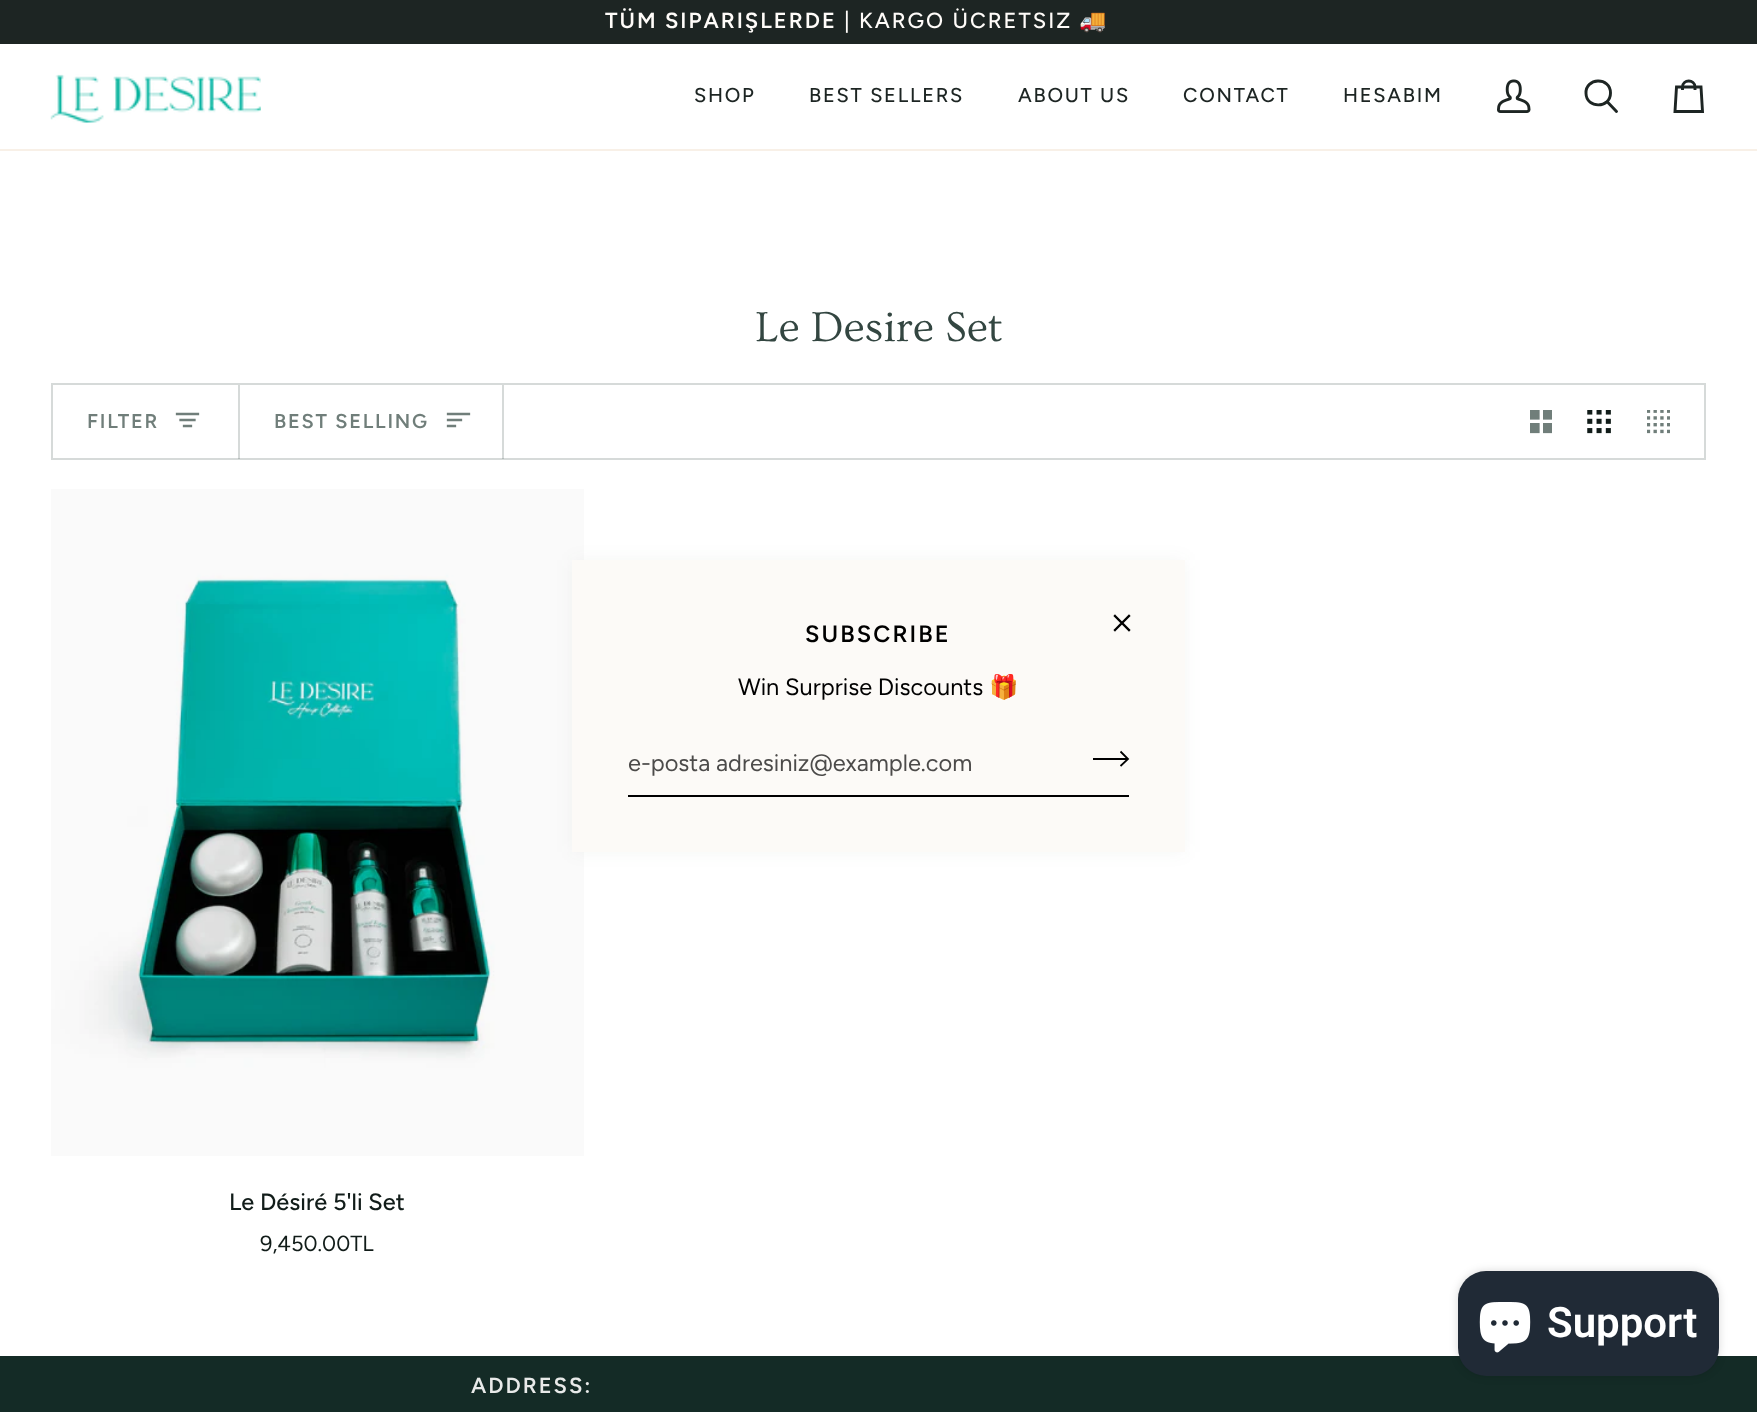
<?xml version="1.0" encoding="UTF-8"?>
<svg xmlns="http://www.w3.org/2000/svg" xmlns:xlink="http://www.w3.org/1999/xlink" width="1757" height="1412">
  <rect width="100%" height="100%" fill="#ffffff" />
  <rect width="1757" height="44" fill="#1d2523" />
  <rect y="149" width="1757" height="2" fill="#f8f0e7" />
  <image x="50" y="74" width="211" height="49" xlink:href="image1.png" />
  <image x="1497" y="79" width="34" height="34" xlink:href="image2.png" />
  <path d="M 1610.5 93 c 0 15.5 -24 16 -24.5 0.5 c -1 -16 24.5 -17 24.5 -0.5 z m 6 18.5 l -9.5 -10 z" fill="none" stroke="#1d2523" stroke-width="2.9" stroke-linecap="round" stroke-linejoin="round" />
  <path d="M 1695 90 v -3 h 6 l 1.5 24.5 h -27.5 l 1.5 -24.5 h 6 c 0 -8 12.5 -8 12.5 0 h -12.5 v 3" fill="none" stroke="#1d2523" stroke-width="2.9" />
  <rect x="52" y="384" width="1653" height="75" fill="none" stroke="#d6dad9" stroke-width="2" />
  <rect x="238" y="385" width="2" height="74" fill="#334641" fill-opacity="0.2" />
  <path d="M 198 414 h -21 m 17.5 6 h -14 m 10.5 6 h -7" fill="none" stroke="#707e7a" stroke-width="2.3" stroke-linecap="square" />
  <rect x="502" y="385" width="2" height="74" fill="#334641" fill-opacity="0.2" />
  <path d="M 469 414 h -21 m 13 6 h -13 m 7 6 h -7" fill="none" stroke="#707e7a" stroke-width="2.3" stroke-linecap="square" />
  <image x="1530" y="410" width="22" height="24" xlink:href="image3.png" />
  <image x="1587" y="410" width="24" height="24" xlink:href="image4.png" />
  <image x="1647" y="410" width="23" height="24" xlink:href="image5.png" />
  <image x="51" y="489" width="533" height="667" xlink:href="image6.png" />
  <rect x="572" y="560" width="613" height="292" fill="#334641" fill-opacity="0.05" filter="blur(9px)" />
  <rect x="572" y="560" width="613" height="292" fill="#fcfaf7" />
  <path d="M 1129 616 l -14 14 m 0 -14 l 14 14" fill="none" stroke="#000000" stroke-width="2.3" stroke-linecap="square" />
  <rect x="628" y="795" width="501" height="2" fill="#000000" />
  <path d="M 1120.5 751.5 l 7.5 7.5 l -7.5 7 m -27.5 -7 h 35" fill="none" stroke="#000000" stroke-width="1.8" />
  <rect y="1356" width="1757" height="56" fill="#142b26" />
  <rect x="1458" y="1271" width="261" height="105" rx="28" fill="#000000" fill-opacity="0.15" filter="blur(4.5px)" />
  <rect x="1458" y="1271" width="261" height="105" rx="28" fill="#202a36" />
  <image x="1479" y="1302" width="52" height="51" xlink:href="image7.png" />
  <text x="605" y="28" style="font-family: Figtree; font-size: 21.9px; font-weight: 600; letter-spacing: 2px; fill: #fffcf9">TÜM SIPARIŞLERDE</text>
  <text x="844" y="28" style="font-family: Figtree; font-size: 21.9px; font-weight: 500; letter-spacing: 2px; fill: #fffcf9">| KARGO ÜCRETSIZ</text>
  <text x="1079" y="28" style="font-family: Noto Color Emoji; font-size: 21.9px; letter-spacing: 2px; fill: #fffcf9">🚚</text>
  <text x="694" y="102" style="font-family: Figtree; font-size: 20px; font-weight: 500; letter-spacing: 1.75px; fill: #1d2523">SHOP</text>
  <text x="809" y="102" style="font-family: Figtree; font-size: 20px; font-weight: 500; letter-spacing: 1.75px; fill: #1d2523">BEST SELLERS</text>
  <text x="1018" y="102" style="font-family: Figtree; font-size: 20px; font-weight: 500; letter-spacing: 1.75px; fill: #1d2523">ABOUT US</text>
  <text x="1183" y="102" style="font-family: Figtree; font-size: 20px; font-weight: 500; letter-spacing: 1.75px; fill: #1d2523">CONTACT</text>
  <text x="1343" y="102" style="font-family: Figtree; font-size: 20px; font-weight: 500; letter-spacing: 1.75px; fill: #1d2523">HESABIM</text>
  <text x="755" y="341" style="font-family: Ovo; font-size: 43.75px; fill: #334641">Le Desire Set</text>
  <text x="87" y="428" style="font-family: Figtree; font-size: 20px; font-weight: 600; letter-spacing: 1.75px; fill: #707e7a">FILTER</text>
  <text x="274" y="428" style="font-family: Figtree; font-size: 20px; font-weight: 600; letter-spacing: 1.75px; fill: #707e7a">BEST SELLING</text>
  <text x="229" y="1210" style="font-family: Figtree; font-size: 23.6px; font-weight: 500; fill: #111c19">Le Désiré 5'li Set</text>
  <text x="260" y="1251" style="font-family: Figtree; font-size: 21.9px; fill: #111c19">9,450.00TL</text>
  <text x="805" y="642" style="font-family: Figtree; font-size: 23.6px; font-weight: 600; letter-spacing: 2.1px; fill: #000000">SUBSCRIBE</text>
  <text x="738" y="695" style="font-family: Figtree; font-size: 23.6px; fill: #000000">Win Surprise Discounts</text>
  <text x="989" y="695" style="font-family: Noto Color Emoji; font-size: 23.6px; fill: #000000">🎁</text>
  <text x="628" y="771" style="font-family: Figtree; font-size: 23.6px; fill: #4c4b4a">e-posta adresiniz@example.com</text>
  <text x="1547" y="1337" style="font-family: Roboto; font-size: 42px; font-weight: 600; fill: #ffffff">Support</text>
  <text x="471" y="1393" style="font-family: Figtree; font-size: 21.9px; font-weight: 600; letter-spacing: 2px; fill: #e8eae9">ADDRESS:</text>
</svg>
